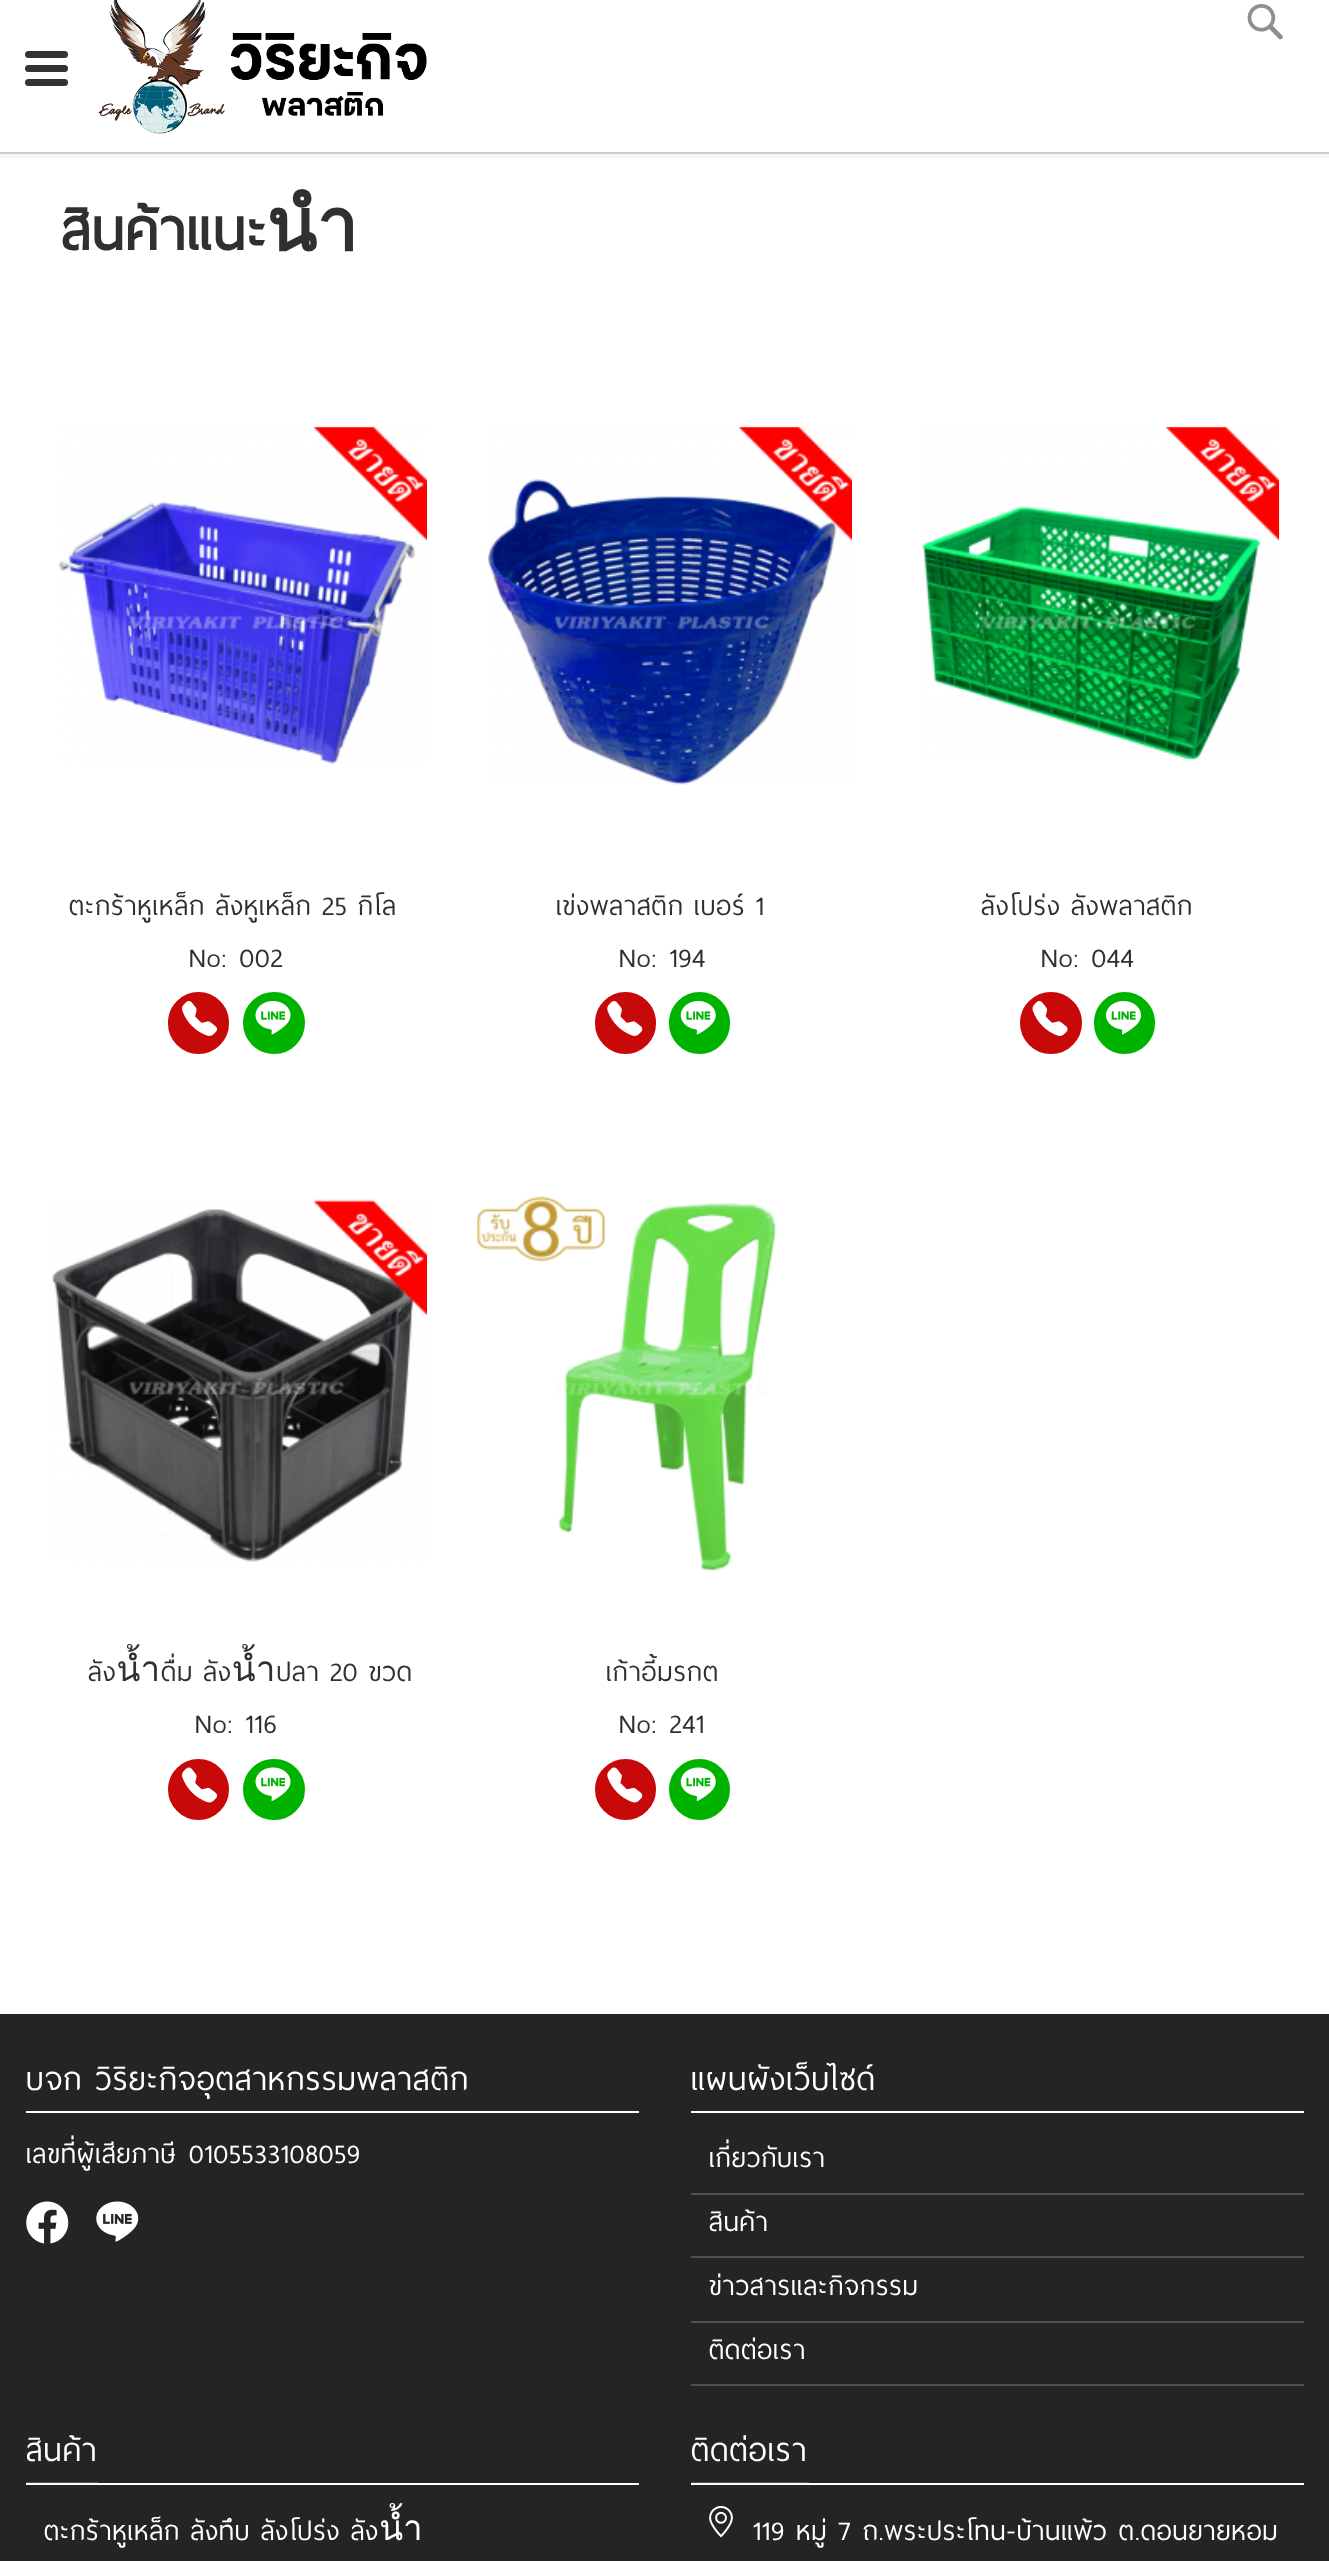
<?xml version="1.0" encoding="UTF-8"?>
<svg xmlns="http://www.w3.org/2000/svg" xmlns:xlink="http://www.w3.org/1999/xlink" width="1329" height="2561">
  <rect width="100%" height="100%" fill="#ffffff" />
  <rect y="152" width="1329" height="2" fill="#cccccc" />
  <image x="98" y="0" width="329" height="134" xlink:href="image1.png" />
  <image x="1247" y="4" width="36" height="36" xlink:href="image2.png" />
  <rect y="154" width="1329" height="4" fill="#f5f6f8" />
  <rect x="25" y="51" width="43" height="7" rx="3.5" fill="#333333" />
  <rect x="25" y="65" width="43" height="7" rx="3.5" fill="#333333" />
  <rect x="25" y="79" width="43" height="7" rx="3.5" fill="#333333" />
  <image x="58" y="426" width="369" height="338" xlink:href="image3.png" />
  <rect x="169" y="993" width="59" height="60" rx="29.5" fill="#c70909" stroke="#c70909" stroke-width="2" />
  <image x="182" y="1001" width="35" height="35" xlink:href="image4.png" />
  <circle cx="274" cy="1023" r="30" fill="#00b300" stroke="#00b300" stroke-width="2" />
  <image x="255" y="1001" width="36" height="34" xlink:href="image5.png" />
  <image x="488" y="426" width="365" height="359" xlink:href="image6.png" />
  <rect x="596" y="993" width="59" height="60" rx="29.5" fill="#c70909" stroke="#c70909" stroke-width="2" />
  <image x="607" y="1001" width="36" height="35" xlink:href="image7.png" />
  <rect x="670" y="993" width="59" height="60" rx="29.5" fill="#00b300" stroke="#00b300" stroke-width="2" />
  <image x="680" y="1001" width="36" height="34" xlink:href="image8.png" />
  <image x="921" y="426" width="359" height="335" xlink:href="image9.png" />
  <circle cx="1051" cy="1023" r="30" fill="#c70909" stroke="#c70909" stroke-width="2" />
  <image x="1032" y="1001" width="36" height="35" xlink:href="image10.png" />
  <rect x="1095" y="993" width="59" height="60" rx="29.5" fill="#00b300" stroke="#00b300" stroke-width="2" />
  <image x="1106" y="1001" width="35" height="34" xlink:href="image11.png" />
  <image x="51" y="1199" width="376" height="363" xlink:href="image12.png" />
  <circle cx="198.5" cy="1789.5" r="29.5" fill="#c70909" stroke="#c70909" stroke-width="2" />
  <image x="182" y="1767" width="35" height="36" xlink:href="image13.png" />
  <rect x="244" y="1760" width="60" height="59" rx="29.5" fill="#00b300" stroke="#00b300" stroke-width="2" />
  <image x="255" y="1767" width="36" height="34" xlink:href="image14.png" />
  <image x="476" y="1196" width="301" height="376" xlink:href="image15.png" />
  <circle cx="625.5" cy="1789.5" r="29.5" fill="#c70909" stroke="#c70909" stroke-width="2" />
  <image x="607" y="1767" width="36" height="36" xlink:href="image16.png" />
  <circle cx="699.5" cy="1789.5" r="29.5" fill="#00b300" stroke="#00b300" stroke-width="2" />
  <image x="680" y="1767" width="36" height="34" xlink:href="image17.png" />
  <rect y="2014" width="1329" height="547" fill="#242424" />
  <rect x="691" y="2482" width="118" height="1" fill="#505050" />
  <rect x="26" y="2482" width="72" height="1" fill="#505050" />
  <rect x="26" y="2111" width="613" height="2" fill="#ffffff" />
  <image x="26" y="2201" width="43" height="43" xlink:href="image18.png" />
  <image x="96" y="2201" width="43" height="41" xlink:href="image19.png" />
  <rect x="691" y="2111" width="613" height="2" fill="#ffffff" />
  <rect x="691" y="2193" width="613" height="2" fill="#505050" />
  <rect x="691" y="2256" width="613" height="2" fill="#505050" />
  <rect x="691" y="2321" width="613" height="2" fill="#505050" />
  <rect x="691" y="2384" width="613" height="2" fill="#505050" />
  <rect x="26" y="2483" width="613" height="2" fill="#ffffff" />
  <rect x="691" y="2483" width="613" height="2" fill="#ffffff" />
  <image x="709" y="2506" width="24" height="32" xlink:href="image20.png" />
  <text x="61" y="250" style="font-family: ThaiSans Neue; font-size: 73.5px; font-weight: bold; letter-spacing: 2.25px; fill: #303030">สินค้าแนะนำ</text>
  <text x="69" y="915" word-spacing="-2" style="font-family: ThaiSans Neue; font-size: 35px; letter-spacing: 1.05px; fill: #303030">ตะกร้าหูเหล็ก ลังหูเหล็ก 25 กิโล</text>
  <text x="189" y="967" style="font-family: ThaiSans Neue; font-size: 35px; letter-spacing: 1.05px; fill: #303030">No: 002</text>
  <text x="556" y="915" word-spacing="-2" style="font-family: ThaiSans Neue; font-size: 35px; letter-spacing: 1.05px; fill: #303030">เข่งพลาสติก เบอร์ 1</text>
  <text x="619" y="967" style="font-family: ThaiSans Neue; font-size: 35px; letter-spacing: 1.05px; fill: #303030">No: 194</text>
  <text x="981" y="915" word-spacing="-2" style="font-family: ThaiSans Neue; font-size: 35px; letter-spacing: 1.05px; fill: #303030">ลังโปร่ง ลังพลาสติก</text>
  <text x="1041" y="967" style="font-family: ThaiSans Neue; font-size: 35px; letter-spacing: 1.05px; fill: #303030">No: 044</text>
  <text x="88" y="1681" word-spacing="-2" style="font-family: ThaiSans Neue; font-size: 35px; letter-spacing: 1.05px; fill: #303030">ลังน้ำดื่ม ลังน้ำปลา 20 ขวด</text>
  <text x="195" y="1733" style="font-family: ThaiSans Neue; font-size: 35px; letter-spacing: 1.05px; fill: #303030">No: 116</text>
  <text x="606" y="1681" style="font-family: ThaiSans Neue; font-size: 35px; letter-spacing: 1.05px; fill: #303030">เก้าอี้มรกต</text>
  <text x="619" y="1733" style="font-family: ThaiSans Neue; font-size: 35px; letter-spacing: 1.05px; fill: #303030">No: 241</text>
  <text x="26" y="2090" word-spacing="-2" style="font-family: ThaiSans Neue; font-size: 42px; letter-spacing: 1.25px; fill: #ffffff">บจก วิริยะกิจอุตสาหกรรมพลาสติก</text>
  <text x="26" y="2163" style="font-family: ThaiSans Neue; font-size: 35px; letter-spacing: 1.05px; fill: #ffffff">เลขที่ผู้เสียภาษี</text>
  <text x="189" y="2163" style="font-family: ThaiSans Neue; font-size: 35px; letter-spacing: 1.05px; fill: #ffffff">0105533108059</text>
  <text x="691" y="2090" style="font-family: ThaiSans Neue; font-size: 42px; letter-spacing: 1.25px; fill: #ffffff">แผนผังเว็บไซด์</text>
  <text x="709" y="2167" style="font-family: ThaiSans Neue; font-size: 35px; letter-spacing: 1.05px; fill: #ffffff">เกี่ยวกับเรา</text>
  <text x="709" y="2231" style="font-family: ThaiSans Neue; font-size: 35px; letter-spacing: 1.05px; fill: #ffffff">สินค้า</text>
  <text x="709" y="2295" style="font-family: ThaiSans Neue; font-size: 35px; letter-spacing: 1.05px; fill: #ffffff">ข่าวสารและกิจกรรม</text>
  <text x="709" y="2359" style="font-family: ThaiSans Neue; font-size: 35px; letter-spacing: 1.05px; fill: #ffffff">ติดต่อเรา</text>
  <text x="26" y="2461" style="font-family: ThaiSans Neue; font-size: 42px; letter-spacing: 1.25px; fill: #ffffff">สินค้า</text>
  <text x="44" y="2540" word-spacing="-2" style="font-family: ThaiSans Neue; font-size: 35px; letter-spacing: 1.05px; fill: #ffffff">ตะกร้าหูเหล็ก ลังทึบ ลังโปร่ง ลังน้ำ</text>
  <text x="691" y="2461" style="font-family: ThaiSans Neue; font-size: 42px; letter-spacing: 1.25px; fill: #ffffff">ติดต่อเรา</text>
  <text x="753" y="2540" word-spacing="-1" style="font-family: ThaiSans Neue; font-size: 35px; letter-spacing: 1.05px; fill: #ffffff">119 หมู่ 7 ถ.พระประโทน-บ้านแพ้ว ต.ดอนยายหอม</text>
</svg>
